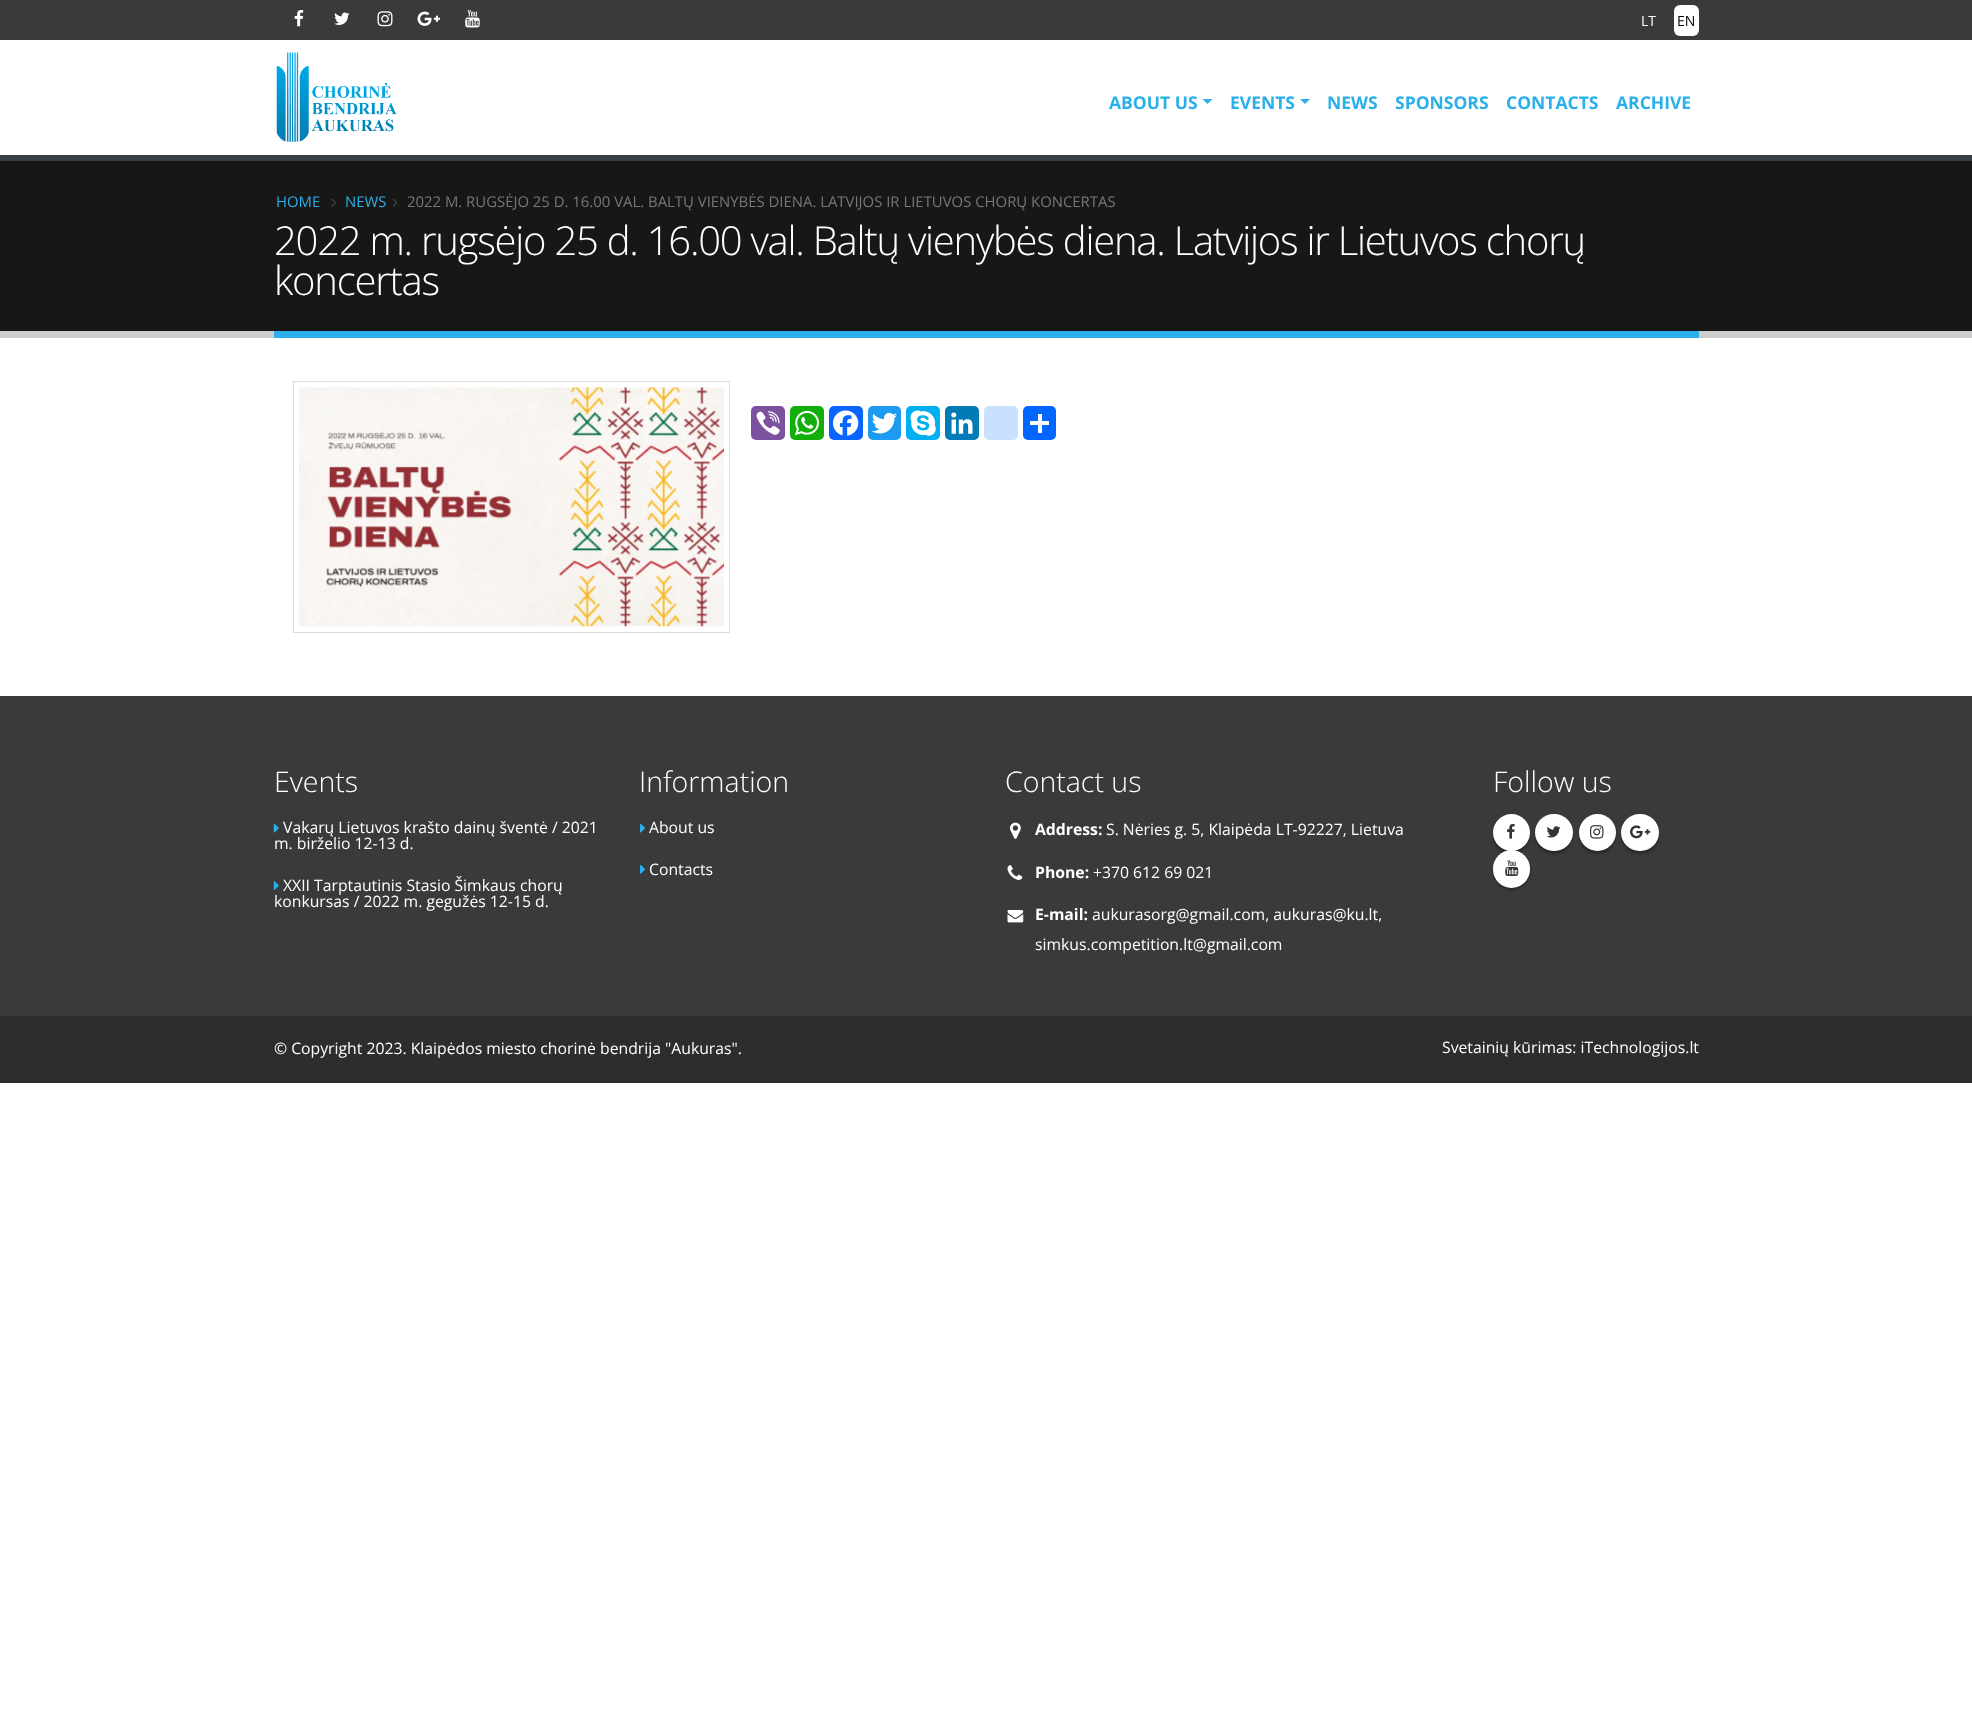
<?xml version="1.0" encoding="UTF-8"?>
<svg xmlns="http://www.w3.org/2000/svg" xmlns:xlink="http://www.w3.org/1999/xlink" width="1972" height="1727">
  <rect width="100%" height="100%" fill="#ffffff" />
  <rect width="1972" height="40" fill="#3a3a3a" />
  <image x="294" y="10" width="10" height="17" xlink:href="image1.png" />
  <image x="334" y="12" width="16" height="13" xlink:href="image2.png" />
  <image x="377" y="11" width="16" height="16" xlink:href="image3.png" />
  <image x="417" y="11" width="23" height="15" xlink:href="image4.png" />
  <image x="465" y="10" width="15" height="18" xlink:href="image5.png" />
  <rect x="1674" y="5" width="25" height="31" rx="6" fill="#ffffff" />
  <image x="276" y="52" width="121" height="90" xlink:href="image6.png" />
  <path d="M 1202.5 99 h 10 l -5 5 z" fill="#2aafea" />
  <path d="M 1300 99 h 10 l -5 5 z" fill="#2aafea" />
  <rect y="161" width="1972" height="170" fill="#171717" />
  <rect y="155" width="1972" height="6" fill="#384045" />
  <rect y="331" width="1972" height="7" fill="#cccccc" />
  <image x="331" y="198" width="5" height="9" xlink:href="image7.png" />
  <image x="392" y="198" width="6" height="9" xlink:href="image8.png" />
  <rect x="274" y="331" width="1425" height="7" fill="#2aafea" />
  <rect x="293.5" y="381.5" width="436" height="251" fill="none" stroke="#dddddd" />
  <image x="299" y="387" width="425" height="240" xlink:href="image9.png" />
  <rect x="751" y="406" width="34" height="34" rx="5" fill="#7c529e" />
  <image x="756" y="411" width="24" height="24" xlink:href="image10.png" />
  <rect x="790" y="406" width="34" height="34" rx="5" fill="#12af0a" />
  <image x="794" y="410" width="25" height="26" xlink:href="image11.png" />
  <rect x="829" y="406" width="34" height="34" rx="5" fill="#0866ff" />
  <image x="833" y="410" width="26" height="26" xlink:href="image12.png" />
  <rect x="868" y="406" width="33" height="34" rx="5" fill="#1d9bf0" />
  <image x="871" y="412" width="26" height="22" xlink:href="image13.png" />
  <rect x="906" y="406" width="34" height="34" rx="5" fill="#00aff0" />
  <image x="910" y="410" width="26" height="26" xlink:href="image14.png" />
  <rect x="945" y="406" width="34" height="34" rx="5" fill="#007bb5" />
  <image x="951" y="412" width="22" height="22" xlink:href="image15.png" />
  <rect x="984" y="406" width="34" height="34" rx="5" fill="#cae0ff" />
  <rect x="1023" y="406" width="33" height="34" rx="5" fill="#0166ff" />
  <rect x="1038" y="414" width="4" height="19" fill="#ffffff" />
  <rect x="1030" y="421" width="19" height="4" fill="#ffffff" />
  <rect y="696" width="1972" height="320" fill="#3a3a3a" />
  <image x="273" y="823" width="6" height="10" xlink:href="image16.png" />
  <image x="273" y="881" width="6" height="10" xlink:href="image17.png" />
  <image x="640" y="823" width="5" height="10" xlink:href="image18.png" />
  <image x="640" y="864" width="5" height="10" xlink:href="image19.png" />
  <image x="1010" y="822" width="11" height="17" xlink:href="image20.png" />
  <image x="1007" y="865" width="16" height="15" xlink:href="image21.png" />
  <image x="1007" y="910" width="17" height="13" xlink:href="image22.png" />
  <rect x="1493" y="816" width="37" height="38" rx="18.5" fill="#000000" fill-opacity="0.3" filter="blur(1px)" />
  <circle cx="1511.5" cy="832.5" r="18.5" fill="#ffffff" />
  <image x="1507" y="824" width="8" height="15" xlink:href="image23.png" />
  <rect x="1535" y="816" width="38" height="38" rx="19" fill="#000000" fill-opacity="0.3" filter="blur(1px)" />
  <rect x="1535" y="814" width="38" height="37" rx="18.5" fill="#ffffff" />
  <image x="1546" y="826" width="15" height="12" xlink:href="image24.png" />
  <rect x="1579" y="816" width="37" height="38" rx="18.5" fill="#000000" fill-opacity="0.3" filter="blur(1px)" />
  <circle cx="1597.5" cy="832.5" r="18.5" fill="#ffffff" />
  <image x="1590" y="825" width="14" height="14" xlink:href="image25.png" />
  <rect x="1621" y="816" width="38" height="38" rx="19" fill="#000000" fill-opacity="0.3" filter="blur(1px)" />
  <rect x="1621" y="814" width="38" height="37" rx="18.5" fill="#ffffff" />
  <image x="1630" y="825" width="21" height="14" xlink:href="image26.png" />
  <rect x="1493" y="853" width="37" height="37" rx="18.5" fill="#000000" fill-opacity="0.3" filter="blur(1px)" />
  <rect x="1493" y="850" width="37" height="38" rx="18.5" fill="#ffffff" />
  <image x="1505" y="860" width="14" height="16" xlink:href="image27.png" />
  <rect y="1016" width="1972" height="67" fill="#2d2d2d" />
  <text x="1641" y="26" style="font-family: Open Sans; font-size: 14px; fill: #ffffff">LT</text>
  <text x="1677" y="26" style="font-family: Open Sans; font-size: 14px; fill: #000000">EN</text>
  <text x="1109" y="109" style="font-family: Open Sans; font-size: 17.5px; font-weight: bold; fill: #2aafea">ABOUT US</text>
  <text x="1230" y="109" style="font-family: Open Sans; font-size: 17.5px; font-weight: bold; fill: #2aafea">EVENTS</text>
  <text x="1327" y="109" style="font-family: Open Sans; font-size: 17.5px; font-weight: bold; fill: #2aafea">NEWS</text>
  <text x="1395" y="109" style="font-family: Open Sans; font-size: 17.5px; font-weight: bold; fill: #2aafea">SPONSORS</text>
  <text x="1506" y="109" style="font-family: Open Sans; font-size: 17.5px; font-weight: bold; fill: #2aafea">CONTACTS</text>
  <text x="1616" y="109" style="font-family: Open Sans; font-size: 17.5px; font-weight: bold; fill: #2aafea">ARCHIVE</text>
  <text x="276" y="207" style="font-family: Open Sans; font-size: 14.9px; fill: #2aafea">HOME</text>
  <text x="345" y="207" style="font-family: Open Sans; font-size: 14.9px; fill: #2aafea">NEWS</text>
  <text x="407" y="207" style="font-family: Open Sans; font-size: 14.9px; fill: #777777">2022 M. RUGSĖJO 25 D. 16.00 VAL. BALTŲ VIENYBĖS DIENA. LATVIJOS IR LIETUVOS CHORŲ KONCERTAS</text>
  <text x="274" y="255" style="font-family: Open Sans; font-size: 40px; font-weight: 300; letter-spacing: -1.25px; fill: #ffffff">2022 m. rugsėjo 25 d. 16.00 val. Baltų vienybės diena. Latvijos ir Lietuvos chorų</text>
  <text x="274" y="295" style="font-family: Open Sans; font-size: 40px; font-weight: 300; letter-spacing: -1.25px; fill: #ffffff">koncertas</text>
  <text x="274" y="792" style="font-family: Open Sans; font-size: 28.5px; font-weight: 300; fill: #ffffff">Events</text>
  <text x="283" y="833" style="font-family: Open Sans; font-size: 15.75px; fill: #ffffff">Vakarų Lietuvos krašto dainų šventė / 2021</text>
  <text x="274" y="849" style="font-family: Open Sans; font-size: 15.75px; fill: #ffffff">m. birželio 12-13 d.</text>
  <text x="283" y="891" style="font-family: Open Sans; font-size: 15.75px; fill: #ffffff">XXII Tarptautinis Stasio Šimkaus chorų</text>
  <text x="274" y="907" style="font-family: Open Sans; font-size: 15.75px; fill: #ffffff">konkursas / 2022 m. gegužės 12-15 d.</text>
  <text x="639" y="792" style="font-family: Open Sans; font-size: 28.5px; font-weight: 300; fill: #ffffff">Information</text>
  <text x="649" y="833" style="font-family: Open Sans; font-size: 15.75px; fill: #ffffff">About us</text>
  <text x="649" y="875" style="font-family: Open Sans; font-size: 15.75px; fill: #ffffff">Contacts</text>
  <text x="1005" y="792" style="font-family: Open Sans; font-size: 28.5px; font-weight: 300; fill: #ffffff">Contact us</text>
  <text x="1035" y="835" style="font-family: Open Sans; font-size: 15.75px; font-weight: bold; fill: #ffffff">Address:</text>
  <text x="1106" y="835" style="font-family: Open Sans; font-size: 15.75px; fill: #ffffff">S. Nėries g. 5, Klaipėda LT-92227, Lietuva</text>
  <text x="1035" y="878" style="font-family: Open Sans; font-size: 15.75px; font-weight: bold; fill: #ffffff">Phone:</text>
  <text x="1093" y="878" style="font-family: Open Sans; font-size: 15.75px; fill: #ffffff">+370 612 69 021</text>
  <text x="1035" y="920" style="font-family: Open Sans; font-size: 15.75px; font-weight: bold; fill: #ffffff">E-mail:</text>
  <text x="1092" y="920" style="font-family: Open Sans; font-size: 15.75px; fill: #ffffff">aukurasorg@gmail.com, aukuras@ku.lt,</text>
  <text x="1035" y="950" style="font-family: Open Sans; font-size: 15.75px; fill: #ffffff">simkus.competition.lt@gmail.com</text>
  <text x="1493" y="792" style="font-family: Open Sans; font-size: 28.5px; font-weight: 300; fill: #ffffff">Follow us</text>
  <text x="274" y="1054" style="font-family: Open Sans; font-size: 15.75px; fill: #ffffff">© Copyright 2023. Klaipėdos miesto chorinė bendrija "Aukuras".</text>
  <text x="1442" y="1053" style="font-family: Open Sans; font-size: 15.75px; fill: #ffffff">Svetainių kūrimas: iTechnologijos.lt</text>
</svg>
